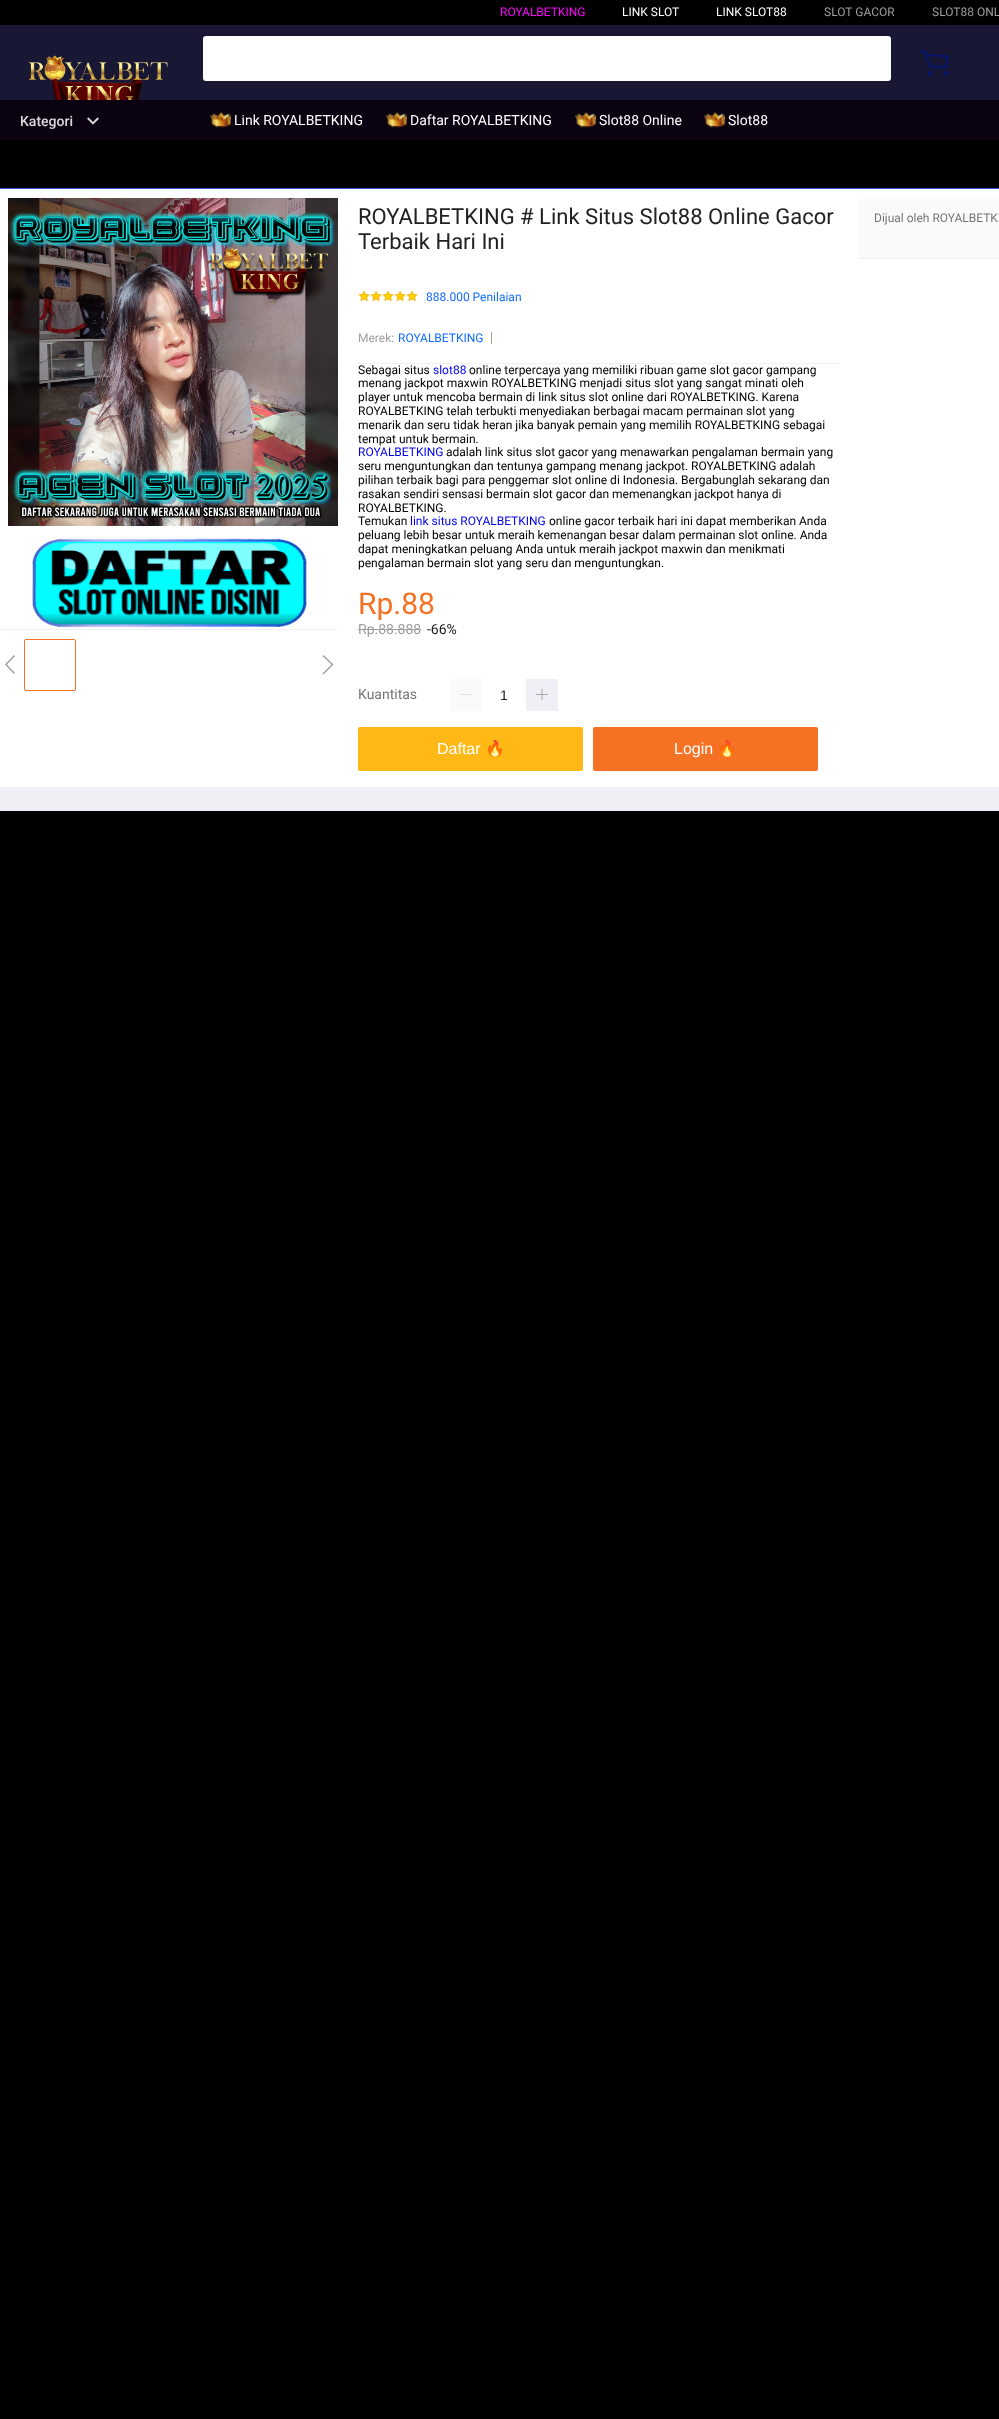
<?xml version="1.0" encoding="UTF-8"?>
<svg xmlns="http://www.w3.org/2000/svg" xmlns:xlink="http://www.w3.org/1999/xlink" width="999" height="2419">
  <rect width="100%" height="100%" fill="#000000" />
  <rect y="25" width="999" height="75" fill="#181834" />
  <image x="28" y="55" width="140" height="45" xlink:href="image1.png" />
  <rect x="203" y="36" width="688" height="45" rx="3" fill="#ffffff" />
  <image x="919" y="50" width="30" height="26" xlink:href="image2.png" />
  <rect y="100" width="999" height="40" fill="#0a0211" />
  <image x="87" y="117" width="12" height="8" xlink:href="image3.png" />
  <image x="210" y="112" width="21" height="16" xlink:href="image4.png" />
  <image x="386" y="112" width="21" height="16" xlink:href="image5.png" />
  <image x="575" y="112" width="21" height="16" xlink:href="image5.png" />
  <image x="704" y="112" width="21" height="16" xlink:href="image5.png" />
  <rect y="188" width="999" height="1" fill="#3352ed" />
  <rect y="787" width="999" height="24" fill="#eff0f5" />
  <rect y="189" width="999" height="598" fill="#ffffff" />
  <rect y="629" width="338" height="1" fill="#eff0f5" />
  <image x="8" y="198" width="330" height="328" xlink:href="image6.png" />
  <image x="32" y="538" width="275" height="90" xlink:href="image7.png" />
  <path d="M 15 673 l -8 -8.5 l 8 -8.5 l -1 -1 l -9 9.5 l 9 9.5 z" fill="#9e9e9e" />
  <rect x="24.5" y="639.5" width="51" height="51" rx="1.5" fill="none" stroke="#f57224" />
  <path d="M 323.5 674.5 l -1 -1 l 9 -9 l -9 -8.5 l 1 -1 l 10 9.5 z" fill="#9e9e9e" />
  <image x="358" y="290" width="12" height="12" xlink:href="image8.png" />
  <image x="370" y="290" width="12" height="12" xlink:href="image8.png" />
  <image x="382" y="290" width="12" height="12" xlink:href="image8.png" />
  <image x="394" y="290" width="12" height="12" xlink:href="image8.png" />
  <image x="406" y="290" width="12" height="12" xlink:href="image8.png" />
  <rect x="358" y="363" width="480" height="1" fill="#eff0f5" />
  <rect x="491" y="332" width="1" height="12" fill="#9e9e9e" />
  <rect x="358" y="629" width="63" height="1" fill="#9e9e9e" />
  <rect x="450" y="679" width="32" height="32" fill="#fafafa" />
  <image x="460" y="694" width="12" height="1" xlink:href="image9.png" />
  <rect x="526" y="679" width="32" height="32" fill="#eff0f5" />
  <image x="536" y="688" width="12" height="13" xlink:href="image10.png" />
  <rect x="358" y="727" width="225" height="44" rx="2" fill="#ffb916" />
  <rect x="593" y="727" width="225" height="44" rx="2" fill="#f57224" />
  <rect x="858" y="199" width="141" height="59" fill="#fafafa" />
  <rect x="858" y="258" width="141" height="1" fill="#eff0f5" />
  <text x="500" y="16" style="font-family: Roboto; font-size: 12px; fill: #ff00ff">ROYALBETKING</text>
  <text x="622" y="16" style="font-family: Roboto; font-size: 12px; fill: #ffffff">LINK SLOT</text>
  <text x="716" y="16" style="font-family: Roboto; font-size: 12px; fill: #ffffff">LINK SLOT88</text>
  <text x="824" y="16" style="font-family: Roboto; font-size: 12px; fill: #9e9e9e">SLOT GACOR</text>
  <text x="932" y="16" style="font-family: Roboto; font-size: 12px; fill: #9e9e9e">SLOT88 ONL</text>
  <text x="20" y="126" style="font-family: Roboto; font-size: 14px; font-weight: 500; fill: #dad9db">Kategori</text>
  <text x="234" y="125" style="font-family: Roboto; font-size: 14px; fill: #ffffff">Link ROYALBETKING</text>
  <text x="410" y="125" style="font-family: Roboto; font-size: 14px; fill: #ffffff">Daftar ROYALBETKING</text>
  <text x="599" y="125" style="font-family: Roboto; font-size: 14px; fill: #ffffff">Slot88 Online</text>
  <text x="728" y="125" style="font-family: Roboto; font-size: 14px; fill: #ffffff">Slot88</text>
  <text x="358" y="224" style="font-family: Roboto; font-size: 22px; fill: #212121">ROYALBETKING # Link Situs Slot88 Online Gacor</text>
  <text x="358" y="249" style="font-family: Roboto; font-size: 22px; fill: #212121">Terbaik Hari Ini</text>
  <text x="426" y="301" style="font-family: Roboto; font-size: 12px; fill: #136cff">888.000 Penilaian</text>
  <text x="358" y="342" style="font-family: Roboto; font-size: 12px; fill: #9e9e9e">Merek:</text>
  <text x="398" y="342" style="font-family: Roboto; font-size: 12px; fill: #136cff">ROYALBETKING</text>
  <text x="358" y="374" style="font-family: Roboto; font-size: 12px; fill: #000000">Sebagai situs</text>
  <text x="433" y="374" style="font-family: Roboto; font-size: 12px; fill: #0000ee">slot88</text>
  <text x="469" y="374" style="font-family: Roboto; font-size: 12px; fill: #000000">online terpercaya yang memiliki ribuan game slot gacor gampang</text>
  <text x="358" y="387" style="font-family: Roboto; font-size: 12px; fill: #000000">menang jackpot maxwin ROYALBETKING menjadi situs slot yang sangat minati oleh</text>
  <text x="358" y="401" style="font-family: Roboto; font-size: 12px; fill: #000000">player untuk mencoba bermain di link situs slot online dari ROYALBETKING. Karena</text>
  <text x="358" y="415" style="font-family: Roboto; font-size: 12px; fill: #000000">ROYALBETKING telah terbukti menyediakan berbagai macam permainan slot yang</text>
  <text x="358" y="429" style="font-family: Roboto; font-size: 12px; fill: #000000">menarik dan seru tidak heran jika banyak pemain yang memilih ROYALBETKING sebagai</text>
  <text x="358" y="443" style="font-family: Roboto; font-size: 12px; fill: #000000">tempat untuk bermain.</text>
  <text x="358" y="456" style="font-family: Roboto; font-size: 12px; fill: #0000ee">ROYALBETKING</text>
  <text x="446" y="456" style="font-family: Roboto; font-size: 12px; fill: #000000">adalah link situs slot gacor yang menawarkan pengalaman bermain yang</text>
  <text x="358" y="470" style="font-family: Roboto; font-size: 12px; fill: #000000">seru menguntungkan dan tentunya gampang menang jackpot. ROYALBETKING adalah</text>
  <text x="358" y="484" style="font-family: Roboto; font-size: 12px; fill: #000000">pilihan terbaik bagi para penggemar slot online di Indonesia. Bergabunglah sekarang dan</text>
  <text x="358" y="498" style="font-family: Roboto; font-size: 12px; fill: #000000">rasakan sendiri sensasi bermain slot gacor dan memenangkan jackpot hanya di</text>
  <text x="358" y="512" style="font-family: Roboto; font-size: 12px; fill: #000000">ROYALBETKING.</text>
  <text x="358" y="525" style="font-family: Roboto; font-size: 12px; fill: #000000">Temukan</text>
  <text x="410" y="525" style="font-family: Roboto; font-size: 12px; fill: #0000ee">link situs ROYALBETKING</text>
  <text x="549" y="525" style="font-family: Roboto; font-size: 12px; fill: #000000">online gacor terbaik hari ini dapat memberikan Anda</text>
  <text x="358" y="539" style="font-family: Roboto; font-size: 12px; fill: #000000">peluang lebih besar untuk meraih kemenangan besar dalam permainan slot online. Anda</text>
  <text x="358" y="553" style="font-family: Roboto; font-size: 12px; fill: #000000">dapat meningkatkan peluang Anda untuk meraih jackpot maxwin dan menikmati</text>
  <text x="358" y="567" style="font-family: Roboto; font-size: 12px; fill: #000000">pengalaman bermain slot yang seru dan menguntungkan.</text>
  <text x="358" y="614" style="font-family: Roboto; font-size: 30px; fill: #f57224">Rp.88</text>
  <text x="358" y="634" style="font-family: Roboto; font-size: 14px; fill: #9e9e9e">Rp.88.888</text>
  <text x="427" y="634" style="font-family: Roboto; font-size: 14px; fill: #212121">-66%</text>
  <text x="358" y="699" style="font-family: Roboto; font-size: 14px; fill: #757575">Kuantitas</text>
  <text x="500" y="700" style="font-family: Liberation Sans; font-size: 14px; fill: #212121">1</text>
  <text x="437" y="754" style="font-family: Liberation Sans; font-size: 16px; fill: #ffffff">Daftar</text>
  <text x="485" y="754" style="font-family: Noto Color Emoji; font-size: 16px; fill: #ffffff">🔥</text>
  <text x="674" y="754" style="font-family: Liberation Sans; font-size: 16px; fill: #ffffff">Login</text>
  <text x="717" y="754" style="font-family: Noto Color Emoji; font-size: 16px; fill: #ffffff">🔥</text>
  <text x="874" y="222" style="font-family: Roboto; font-size: 12px; fill: #757575">Dijual oleh ROYALBETK</text>
</svg>
